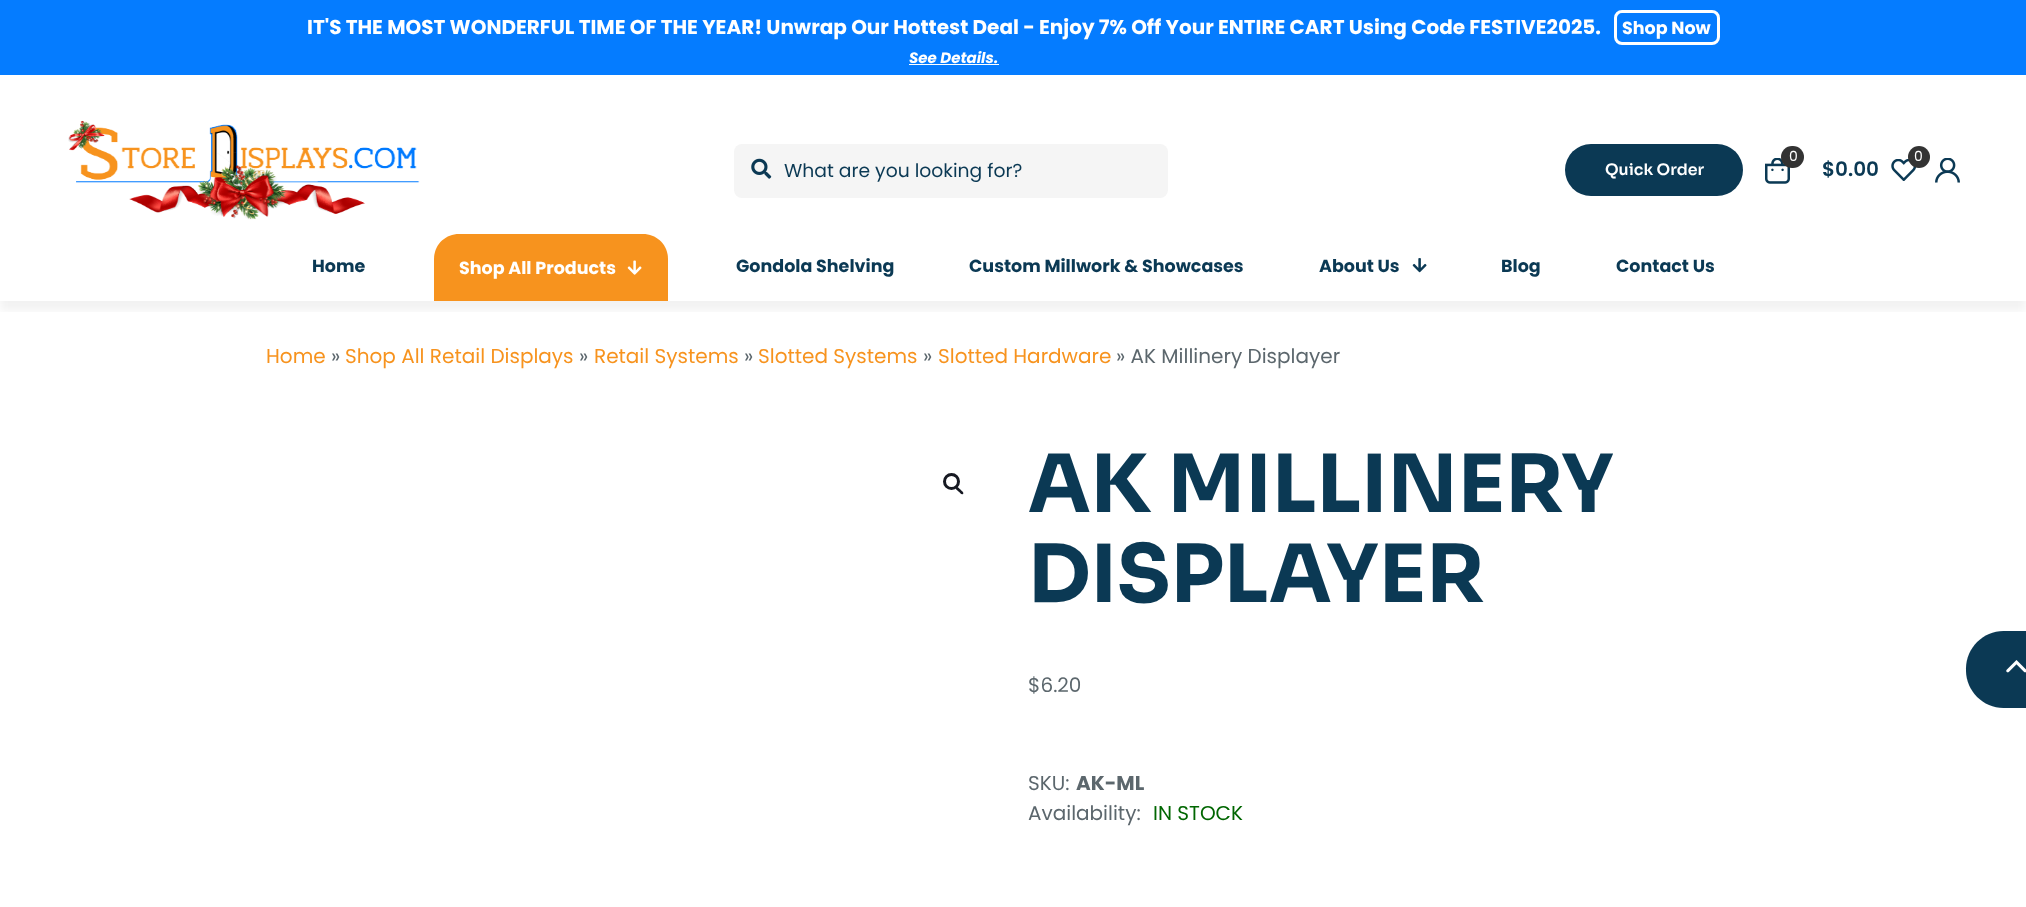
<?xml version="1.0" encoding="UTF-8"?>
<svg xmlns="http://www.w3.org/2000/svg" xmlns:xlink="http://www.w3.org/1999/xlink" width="2026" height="907">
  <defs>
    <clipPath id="clip1"><rect x="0" y="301" width="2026" height="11" /></clipPath>
  </defs>
  <rect width="100%" height="100%" fill="#ffffff" />
  <rect width="2026" height="75" fill="#057cff" />
  <rect x="909" y="64" width="90" height="1" fill="#ffffff" />
  <rect x="1615.5" y="11.5" width="103" height="32" rx="6.5" fill="none" stroke="#ffffff" stroke-width="3" />
  <image x="68" y="120" width="352" height="100" xlink:href="image1.png" />
  <rect x="734" y="144" width="434" height="54" rx="8" fill="#f5f5f5" />
  <image x="751" y="158" width="21" height="21" xlink:href="image2.png" />
  <image x="1765" y="158" width="25" height="26" xlink:href="image3.png" />
  <rect x="1781" y="146" width="23" height="22" rx="11" fill="#333333" />
  <image x="1891" y="159" width="25" height="22" xlink:href="image4.png" />
  <circle cx="1919" cy="157" r="11" fill="#333333" />
  <rect x="1565" y="144" width="178" height="52" rx="26" fill="#0b3954" />
  <image x="1935" y="158" width="25" height="25" xlink:href="image5.png" />
  <g clip-path="url(#clip1)">
    <rect y="244" width="2026" height="67" fill="#000000" fill-opacity="0.05" filter="blur(5px)" />
  </g>
  <path d="M 459 234 h 184 c 14 0 25 11 25 25 v 42 h -234 v -42 c 0 -14 11 -25 25 -25 z" fill="#f7931e" />
  <image x="627" y="260" width="15" height="15" xlink:href="image6.png" />
  <image x="1412" y="258" width="15" height="15" xlink:href="image7.png" />
  <path d="M 2003.5 631 h 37.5 v 77 h -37.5 c -20.5 0 -37.5 -17 -37.5 -37.5 v -2 c 0 -20.5 17 -37.5 37.5 -37.5 z" fill="#0b3954" />
  <image x="2006" y="660" width="20" height="13" xlink:href="image8.png" />
  <circle cx="951.5" cy="481.5" r="7" fill="none" stroke="#161922" stroke-width="3" />
  <path d="M 956 487 c 1.5 -1.5 3.5 2 4.5 2.5 c 0.5 1 4 3 2.5 4.5 c -1.5 1.5 -3.5 -2 -4.5 -2.5 c -1 -1 -4 -3 -2.5 -4.5 z" fill="#161922" />
  <text x="307" y="34" style="font-family: Poppins; font-size: 20px; font-weight: bold; fill: #ffffff">IT'S THE MOST WONDERFUL TIME OF THE YEAR! Unwrap Our Hottest Deal - Enjoy 7% Off Your ENTIRE CART Using Code FESTIVE2025.</text>
  <text x="909" y="63" style="font-family: Poppins; font-size: 15px; font-weight: bold; font-style: italic; fill: #ffffff">See Details.</text>
  <text x="1622" y="34" style="font-family: Poppins; font-size: 17.5px; font-weight: bold; fill: #ffffff">Shop Now</text>
  <text x="784" y="177" style="font-family: Poppins; font-size: 18.75px; fill: #0b3954">What are you looking for?</text>
  <text x="1789" y="161" style="font-family: Poppins; font-size: 14px; fill: #ffffff">0</text>
  <text x="1822" y="176" style="font-family: Poppins; font-size: 20px; font-weight: 600; fill: #0b3954">$0.00</text>
  <text x="1914" y="161" style="font-family: Poppins; font-size: 14px; fill: #ffffff">0</text>
  <text x="1605" y="175" style="font-family: Sora; font-size: 15.75px; font-weight: 600; fill: #ffffff">Quick Order</text>
  <text x="312" y="272" style="font-family: Poppins; font-size: 17.5px; font-weight: bold; fill: #0b3954">Home</text>
  <text x="459" y="274" style="font-family: Poppins; font-size: 17.5px; font-weight: bold; fill: #ffffff">Shop All Products</text>
  <text x="736" y="272" style="font-family: Poppins; font-size: 17.5px; font-weight: bold; fill: #0b3954">Gondola Shelving</text>
  <text x="969" y="272" style="font-family: Poppins; font-size: 17.5px; font-weight: bold; fill: #0b3954">Custom Millwork &amp; Showcases</text>
  <text x="1319" y="272" style="font-family: Poppins; font-size: 17.5px; font-weight: bold; fill: #0b3954">About Us</text>
  <text x="1501" y="272" style="font-family: Poppins; font-size: 17.5px; font-weight: bold; fill: #0b3954">Blog</text>
  <text x="1616" y="272" style="font-family: Poppins; font-size: 17.5px; font-weight: bold; fill: #0b3954">Contact Us</text>
  <text x="266" y="363" style="font-family: Poppins; font-size: 20px; fill: #f7931e">Home</text>
  <text x="331" y="363" style="font-family: Poppins; font-size: 20px; fill: #5c676d">»</text>
  <text x="345" y="363" style="font-family: Poppins; font-size: 20px; fill: #f7931e">Shop All Retail Displays</text>
  <text x="579" y="363" style="font-family: Poppins; font-size: 20px; fill: #5c676d">»</text>
  <text x="594" y="363" style="font-family: Poppins; font-size: 20px; fill: #f7931e">Retail Systems</text>
  <text x="744" y="363" style="font-family: Poppins; font-size: 20px; fill: #5c676d">»</text>
  <text x="758" y="363" style="font-family: Poppins; font-size: 20px; fill: #f7931e">Slotted Systems</text>
  <text x="923" y="363" style="font-family: Poppins; font-size: 20px; fill: #5c676d">»</text>
  <text x="938" y="363" style="font-family: Poppins; font-size: 20px; fill: #f7931e">Slotted Hardware</text>
  <text x="1116" y="363" style="font-family: Poppins; font-size: 20px; fill: #5c676d">» AK Millinery Displayer</text>
  <text x="1028" y="512" style="font-family: Sora; font-size: 80px; font-weight: bold; fill: #0b3954">AK MILLINERY</text>
  <text x="1028" y="602" style="font-family: Sora; font-size: 80px; font-weight: bold; fill: #0b3954">DISPLAYER</text>
  <text x="1028" y="692" style="font-family: Poppins; font-size: 20px; fill: #5c676d">$6.20</text>
  <text x="1028" y="790" style="font-family: Poppins; font-size: 20px; fill: #5c676d">SKU:</text>
  <text x="1076" y="790" style="font-family: Poppins; font-size: 20px; font-weight: bold; fill: #5c676d">AK-ML</text>
  <text x="1028" y="820" style="font-family: Poppins; font-size: 20px; fill: #5c676d">Availability:</text>
  <text x="1153" y="820" style="font-family: Poppins; font-size: 20px; fill: #006601">IN STOCK</text>
</svg>
